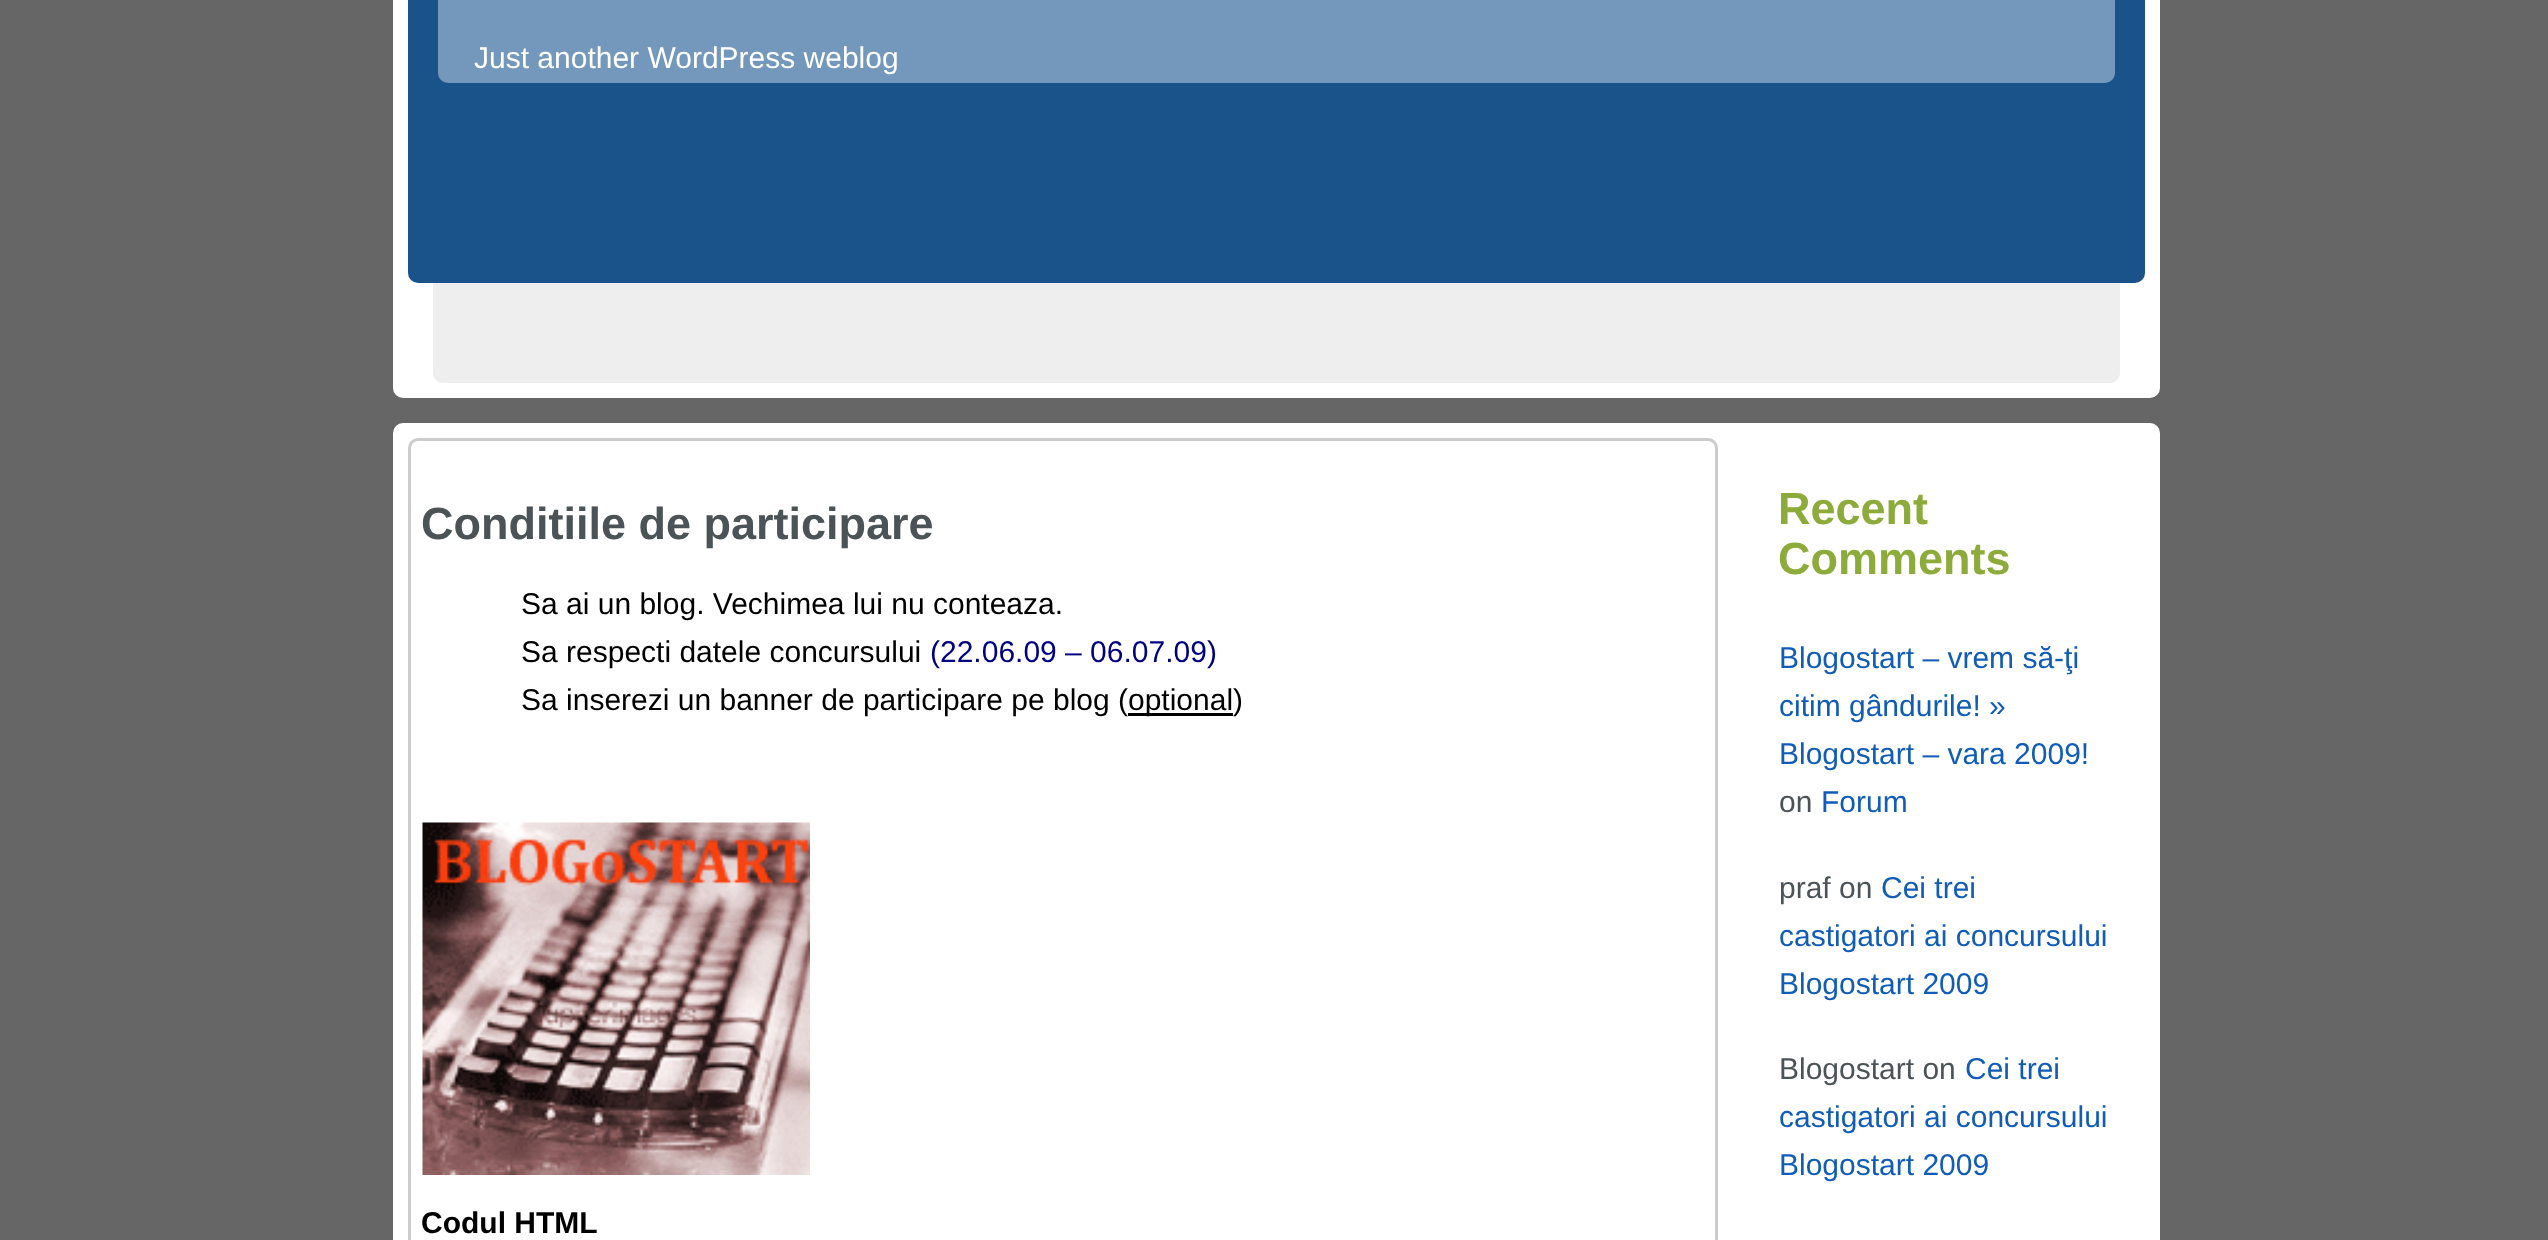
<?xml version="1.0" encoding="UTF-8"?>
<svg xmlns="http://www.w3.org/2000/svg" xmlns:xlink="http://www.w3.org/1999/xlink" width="2548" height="1240">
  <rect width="100%" height="100%" fill="#666666" />
  <rect x="393" y="-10" width="1767" height="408" rx="10" fill="#ffffff" />
  <rect x="408" y="-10" width="1737" height="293" rx="10" fill="#1a5389" />
  <rect x="438" y="-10" width="1677" height="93" rx="10" fill="#7498bb" />
  <path d="M 433 283 h 1687 v 90 c 0 5.5 -4.5 10 -10 10 h -1667 c -5.5 0 -10 -4.5 -10 -10 z" fill="#eeeeee" />
  <rect x="393" y="423" width="1767" height="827" rx="10" fill="#ffffff" />
  <rect x="409.5" y="439.5" width="1307" height="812" rx="8.5" fill="none" stroke="#cccccc" stroke-width="3" />
  <rect x="1128" y="713" width="105" height="3" fill="#000000" />
  <image x="422" y="822" width="388" height="353" xlink:href="image1.png" />
  <text x="474" y="68" style="font-family: Liberation Sans; font-size: 30px; fill: #ffffff">Just another WordPress weblog</text>
  <text x="421" y="539" style="font-family: Liberation Sans; font-size: 45px; font-weight: bold; fill: #4c5357">Conditiile de participare</text>
  <text x="521" y="614" style="font-family: Liberation Sans; font-size: 30px; fill: #000000">Sa ai un blog. Vechimea lui nu conteaza.</text>
  <text x="521" y="662" style="font-family: Liberation Sans; font-size: 30px; fill: #000000">Sa respecti datele concursului</text>
  <text x="930" y="662" style="font-family: Liberation Sans; font-size: 30px; fill: #000080">(22.06.09 – 06.07.09)</text>
  <text x="521" y="710" style="font-family: Liberation Sans; font-size: 30px; fill: #000000">Sa inserezi un banner de participare pe blog (</text>
  <text x="1128" y="710" style="font-family: Liberation Sans; font-size: 30px; fill: #000000">optional)</text>
  <text x="421" y="1233" style="font-family: Liberation Sans; font-size: 30px; font-weight: bold; fill: #000000">Codul HTML</text>
  <text x="1778" y="524" style="font-family: Liberation Sans; font-size: 45px; font-weight: bold; fill: #8dab3b">Recent</text>
  <text x="1778" y="574" style="font-family: Liberation Sans; font-size: 45px; font-weight: bold; fill: #8dab3b">Comments</text>
  <text x="1779" y="668" style="font-family: Liberation Sans; font-size: 30px; fill: #105cb6">Blogostart – vrem să-ţi</text>
  <text x="1779" y="716" style="font-family: Liberation Sans; font-size: 30px; fill: #105cb6">citim gândurile! »</text>
  <text x="1779" y="764" style="font-family: Liberation Sans; font-size: 30px; fill: #105cb6">Blogostart – vara 2009!</text>
  <text x="1779" y="812" style="font-family: Liberation Sans; font-size: 30px; fill: #4c5357">on</text>
  <text x="1821" y="812" style="font-family: Liberation Sans; font-size: 30px; fill: #105cb6">Forum</text>
  <text x="1779" y="898" style="font-family: Liberation Sans; font-size: 30px; fill: #4c5357">praf on</text>
  <text x="1881" y="898" style="font-family: Liberation Sans; font-size: 30px; fill: #105cb6">Cei trei</text>
  <text x="1779" y="946" style="font-family: Liberation Sans; font-size: 30px; fill: #105cb6">castigatori ai concursului</text>
  <text x="1779" y="994" style="font-family: Liberation Sans; font-size: 30px; fill: #105cb6">Blogostart 2009</text>
  <text x="1779" y="1079" style="font-family: Liberation Sans; font-size: 30px; fill: #4c5357">Blogostart on</text>
  <text x="1965" y="1079" style="font-family: Liberation Sans; font-size: 30px; fill: #105cb6">Cei trei</text>
  <text x="1779" y="1127" style="font-family: Liberation Sans; font-size: 30px; fill: #105cb6">castigatori ai concursului</text>
  <text x="1779" y="1175" style="font-family: Liberation Sans; font-size: 30px; fill: #105cb6">Blogostart 2009</text>
</svg>
